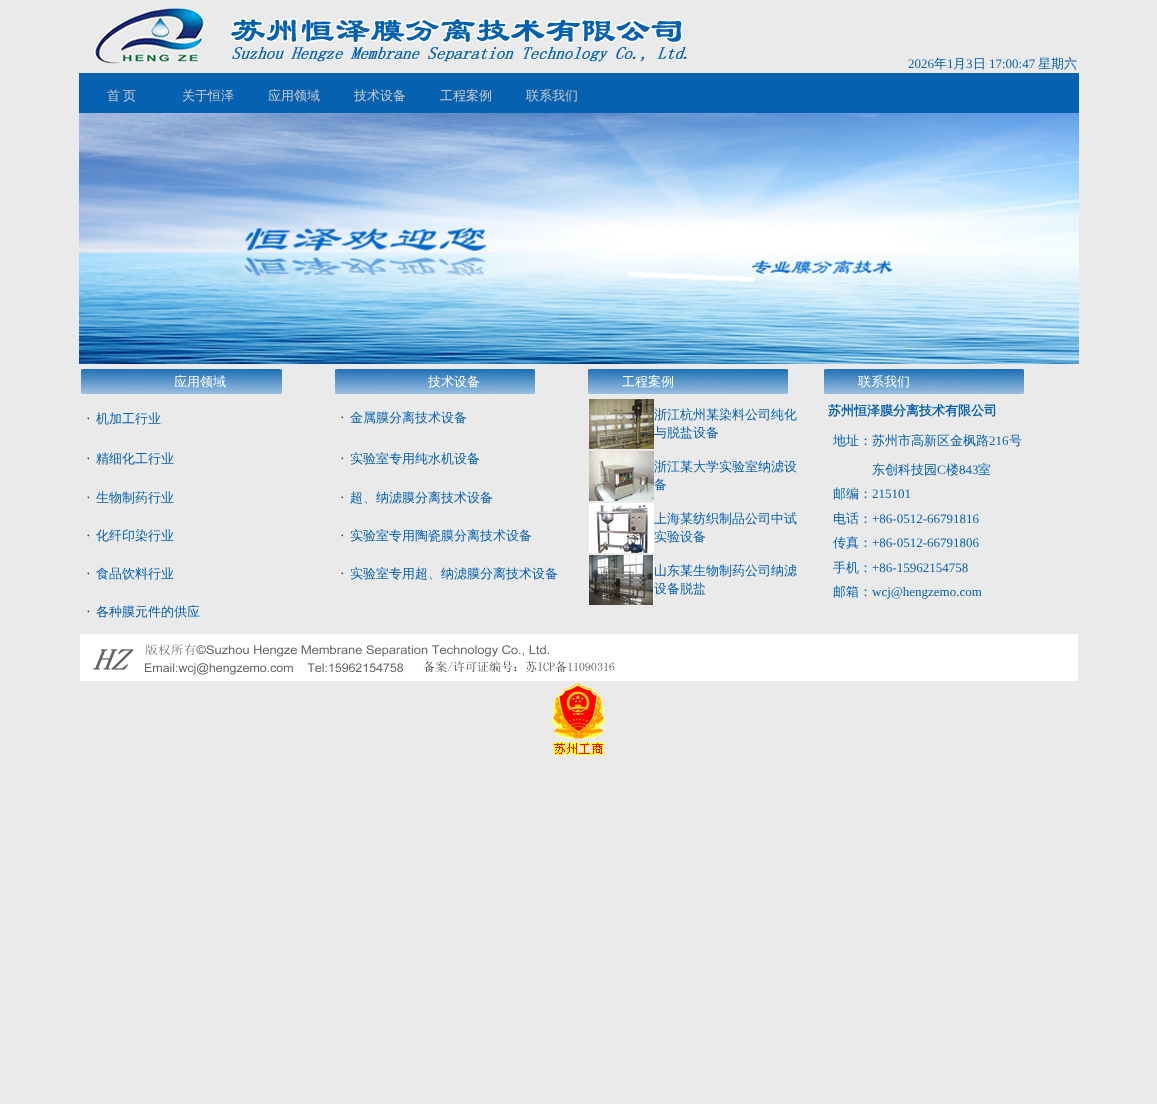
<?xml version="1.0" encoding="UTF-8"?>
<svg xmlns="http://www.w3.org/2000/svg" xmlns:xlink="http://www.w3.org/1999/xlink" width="1157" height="1104">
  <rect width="100%" height="100%" fill="#eaeaea" />
  <image x="92" y="4" width="595" height="61" xlink:href="image1.png" />
  <rect x="79" y="73" width="1000" height="40" fill="#0661b0" />
  <image x="79" y="113" width="1000" height="251" xlink:href="image2.png" />
  <image x="81" y="369" width="201" height="25" xlink:href="image3.png" />
  <image x="335" y="369" width="200" height="25" xlink:href="image4.png" />
  <image x="588" y="369" width="200" height="25" xlink:href="image4.png" />
  <image x="824" y="369" width="200" height="25" xlink:href="image4.png" />
  <image x="589" y="399" width="65" height="50" xlink:href="image5.png" />
  <image x="589" y="451" width="65" height="50" xlink:href="image6.png" />
  <image x="589" y="503" width="65" height="50" xlink:href="image7.png" />
  <image x="589" y="555" width="65" height="50" xlink:href="image8.png" />
  <image x="80" y="634" width="998" height="47" xlink:href="image9.png" />
  <image x="552" y="683" width="53" height="72" xlink:href="image10.png" />
  <text x="908" y="68" style="font-family: Liberation Serif; font-size: 13px; fill: #0661b0">2026</text>
  <text x="934" y="68" style="font-family: WenQuanYi Zen Hei; font-size: 13px; font-weight: 500; fill: #0661b0">年</text>
  <text x="947" y="68" style="font-family: Liberation Serif; font-size: 13px; fill: #0661b0">1</text>
  <text x="953" y="68" style="font-family: WenQuanYi Zen Hei; font-size: 13px; font-weight: 500; fill: #0661b0">月</text>
  <text x="966" y="68" style="font-family: Liberation Serif; font-size: 13px; fill: #0661b0">3</text>
  <text x="973" y="68" style="font-family: WenQuanYi Zen Hei; font-size: 13px; font-weight: 500; fill: #0661b0">日</text>
  <text x="989" y="68" style="font-family: Liberation Serif; font-size: 13px; fill: #0661b0">17:00:47</text>
  <text x="1038" y="68" style="font-family: WenQuanYi Zen Hei; font-size: 13px; font-weight: 500; fill: #0661b0">星期六</text>
  <text x="107" y="100" word-spacing="-1" style="font-family: WenQuanYi Zen Hei; font-size: 13px; font-weight: 500; fill: #cccccc">首 页</text>
  <text x="182" y="100" style="font-family: WenQuanYi Zen Hei; font-size: 13px; font-weight: 500; fill: #cccccc">关于恒泽</text>
  <text x="268" y="100" style="font-family: WenQuanYi Zen Hei; font-size: 13px; font-weight: 500; fill: #cccccc">应用领域</text>
  <text x="354" y="100" style="font-family: WenQuanYi Zen Hei; font-size: 13px; font-weight: 500; fill: #cccccc">技术设备</text>
  <text x="440" y="100" style="font-family: WenQuanYi Zen Hei; font-size: 13px; font-weight: 500; fill: #cccccc">工程案例</text>
  <text x="526" y="100" style="font-family: WenQuanYi Zen Hei; font-size: 13px; font-weight: 500; fill: #cccccc">联系我们</text>
  <text x="174" y="386" style="font-family: WenQuanYi Zen Hei; font-size: 13px; font-weight: 500; fill: #ffffff">应用领域</text>
  <text x="428" y="386" style="font-family: WenQuanYi Zen Hei; font-size: 13px; font-weight: 500; fill: #ffffff">技术设备</text>
  <text x="622" y="386" style="font-family: WenQuanYi Zen Hei; font-size: 13px; font-weight: 500; fill: #ffffff">工程案例</text>
  <text x="858" y="386" style="font-family: WenQuanYi Zen Hei; font-size: 13px; font-weight: 500; fill: #ffffff">联系我们</text>
  <text x="86" y="423" style="font-family: Liberation Serif; font-size: 14px; fill: #333333">·</text>
  <text x="96" y="423" style="font-family: WenQuanYi Zen Hei; font-size: 13px; font-weight: 500; fill: #0661b0">机加工行业</text>
  <text x="86" y="463" style="font-family: Liberation Serif; font-size: 14px; fill: #333333">·</text>
  <text x="96" y="463" style="font-family: WenQuanYi Zen Hei; font-size: 13px; font-weight: 500; fill: #0661b0">精细化工行业</text>
  <text x="86" y="502" style="font-family: Liberation Serif; font-size: 14px; fill: #333333">·</text>
  <text x="96" y="502" style="font-family: WenQuanYi Zen Hei; font-size: 13px; font-weight: 500; fill: #0661b0">生物制药行业</text>
  <text x="86" y="540" style="font-family: Liberation Serif; font-size: 14px; fill: #333333">·</text>
  <text x="96" y="540" style="font-family: WenQuanYi Zen Hei; font-size: 13px; font-weight: 500; fill: #0661b0">化纤印染行业</text>
  <text x="86" y="578" style="font-family: Liberation Serif; font-size: 14px; fill: #333333">·</text>
  <text x="96" y="578" style="font-family: WenQuanYi Zen Hei; font-size: 13px; font-weight: 500; fill: #0661b0">食品饮料行业</text>
  <text x="86" y="616" style="font-family: Liberation Serif; font-size: 14px; fill: #333333">·</text>
  <text x="96" y="616" style="font-family: WenQuanYi Zen Hei; font-size: 13px; font-weight: 500; fill: #0661b0">各种膜元件的供应</text>
  <text x="340" y="422" style="font-family: Liberation Serif; font-size: 14px; fill: #333333">·</text>
  <text x="350" y="422" style="font-family: WenQuanYi Zen Hei; font-size: 13px; font-weight: 500; fill: #0661b0">金属膜分离技术设备</text>
  <text x="340" y="463" style="font-family: Liberation Serif; font-size: 14px; fill: #333333">·</text>
  <text x="350" y="463" style="font-family: WenQuanYi Zen Hei; font-size: 13px; font-weight: 500; fill: #0661b0">实验室专用纯水机设备</text>
  <text x="340" y="502" style="font-family: Liberation Serif; font-size: 14px; fill: #333333">·</text>
  <text x="350" y="502" style="font-family: WenQuanYi Zen Hei; font-size: 13px; font-weight: 500; fill: #0661b0">超、纳滤膜分离技术设备</text>
  <text x="340" y="540" style="font-family: Liberation Serif; font-size: 14px; fill: #333333">·</text>
  <text x="350" y="540" style="font-family: WenQuanYi Zen Hei; font-size: 13px; font-weight: 500; fill: #0661b0">实验室专用陶瓷膜分离技术设备</text>
  <text x="340" y="578" style="font-family: Liberation Serif; font-size: 14px; fill: #333333">·</text>
  <text x="350" y="578" style="font-family: WenQuanYi Zen Hei; font-size: 13px; font-weight: 500; fill: #0661b0">实验室专用超、纳滤膜分离技术设备</text>
  <text x="654" y="419" style="font-family: WenQuanYi Zen Hei; font-size: 13px; font-weight: 500; fill: #0661b0">浙江杭州某染料公司纯化</text>
  <text x="654" y="437" style="font-family: WenQuanYi Zen Hei; font-size: 13px; font-weight: 500; fill: #0661b0">与脱盐设备</text>
  <text x="654" y="471" style="font-family: WenQuanYi Zen Hei; font-size: 13px; font-weight: 500; fill: #0661b0">浙江某大学实验室纳滤设</text>
  <text x="654" y="489" style="font-family: WenQuanYi Zen Hei; font-size: 13px; font-weight: 500; fill: #0661b0">备</text>
  <text x="654" y="523" style="font-family: WenQuanYi Zen Hei; font-size: 13px; font-weight: 500; fill: #0661b0">上海某纺织制品公司中试</text>
  <text x="654" y="541" style="font-family: WenQuanYi Zen Hei; font-size: 13px; font-weight: 500; fill: #0661b0">实验设备</text>
  <text x="654" y="575" style="font-family: WenQuanYi Zen Hei; font-size: 13px; font-weight: 500; fill: #0661b0">山东某生物制药公司纳滤</text>
  <text x="654" y="593" style="font-family: WenQuanYi Zen Hei; font-size: 13px; font-weight: 500; fill: #0661b0">设备脱盐</text>
  <text x="828" y="415" style="font-family: WenQuanYi Zen Hei; font-size: 13px; font-weight: bold; fill: #0661b0">苏州恒泽膜分离技术有限公司</text>
  <text x="833" y="445" style="font-family: WenQuanYi Zen Hei; font-size: 13px; font-weight: 500; fill: #0661b0">地址：苏州市高新区金枫路</text>
  <text x="989" y="445" style="font-family: Liberation Serif; font-size: 13px; fill: #0661b0">216</text>
  <text x="1009" y="445" style="font-family: WenQuanYi Zen Hei; font-size: 13px; font-weight: 500; fill: #0661b0">号</text>
  <text x="872" y="474" style="font-family: WenQuanYi Zen Hei; font-size: 13px; font-weight: 500; fill: #0661b0">东创科技园</text>
  <text x="937" y="474" style="font-family: Liberation Serif; font-size: 13px; fill: #0661b0">C</text>
  <text x="946" y="474" style="font-family: WenQuanYi Zen Hei; font-size: 13px; font-weight: 500; fill: #0661b0">楼</text>
  <text x="959" y="474" style="font-family: Liberation Serif; font-size: 13px; fill: #0661b0">843</text>
  <text x="978" y="474" style="font-family: WenQuanYi Zen Hei; font-size: 13px; font-weight: 500; fill: #0661b0">室</text>
  <text x="833" y="498" style="font-family: WenQuanYi Zen Hei; font-size: 13px; font-weight: 500; fill: #0661b0">邮编：</text>
  <text x="872" y="498" style="font-family: Liberation Serif; font-size: 13px; fill: #0661b0">215101</text>
  <text x="833" y="523" style="font-family: WenQuanYi Zen Hei; font-size: 13px; font-weight: 500; fill: #0661b0">电话：</text>
  <text x="872" y="523" style="font-family: Liberation Serif; font-size: 13px; fill: #0661b0">+86-0512-66791816</text>
  <text x="833" y="547" style="font-family: WenQuanYi Zen Hei; font-size: 13px; font-weight: 500; fill: #0661b0">传真：</text>
  <text x="872" y="547" style="font-family: Liberation Serif; font-size: 13px; fill: #0661b0">+86-0512-66791806</text>
  <text x="833" y="572" style="font-family: WenQuanYi Zen Hei; font-size: 13px; font-weight: 500; fill: #0661b0">手机：</text>
  <text x="872" y="572" style="font-family: Liberation Serif; font-size: 13px; fill: #0661b0">+86-15962154758</text>
  <text x="833" y="596" style="font-family: WenQuanYi Zen Hei; font-size: 13px; font-weight: 500; fill: #0661b0">邮箱：</text>
  <text x="872" y="596" style="font-family: Liberation Serif; font-size: 13px; fill: #0661b0">wcj@hengzemo.com</text>
</svg>
